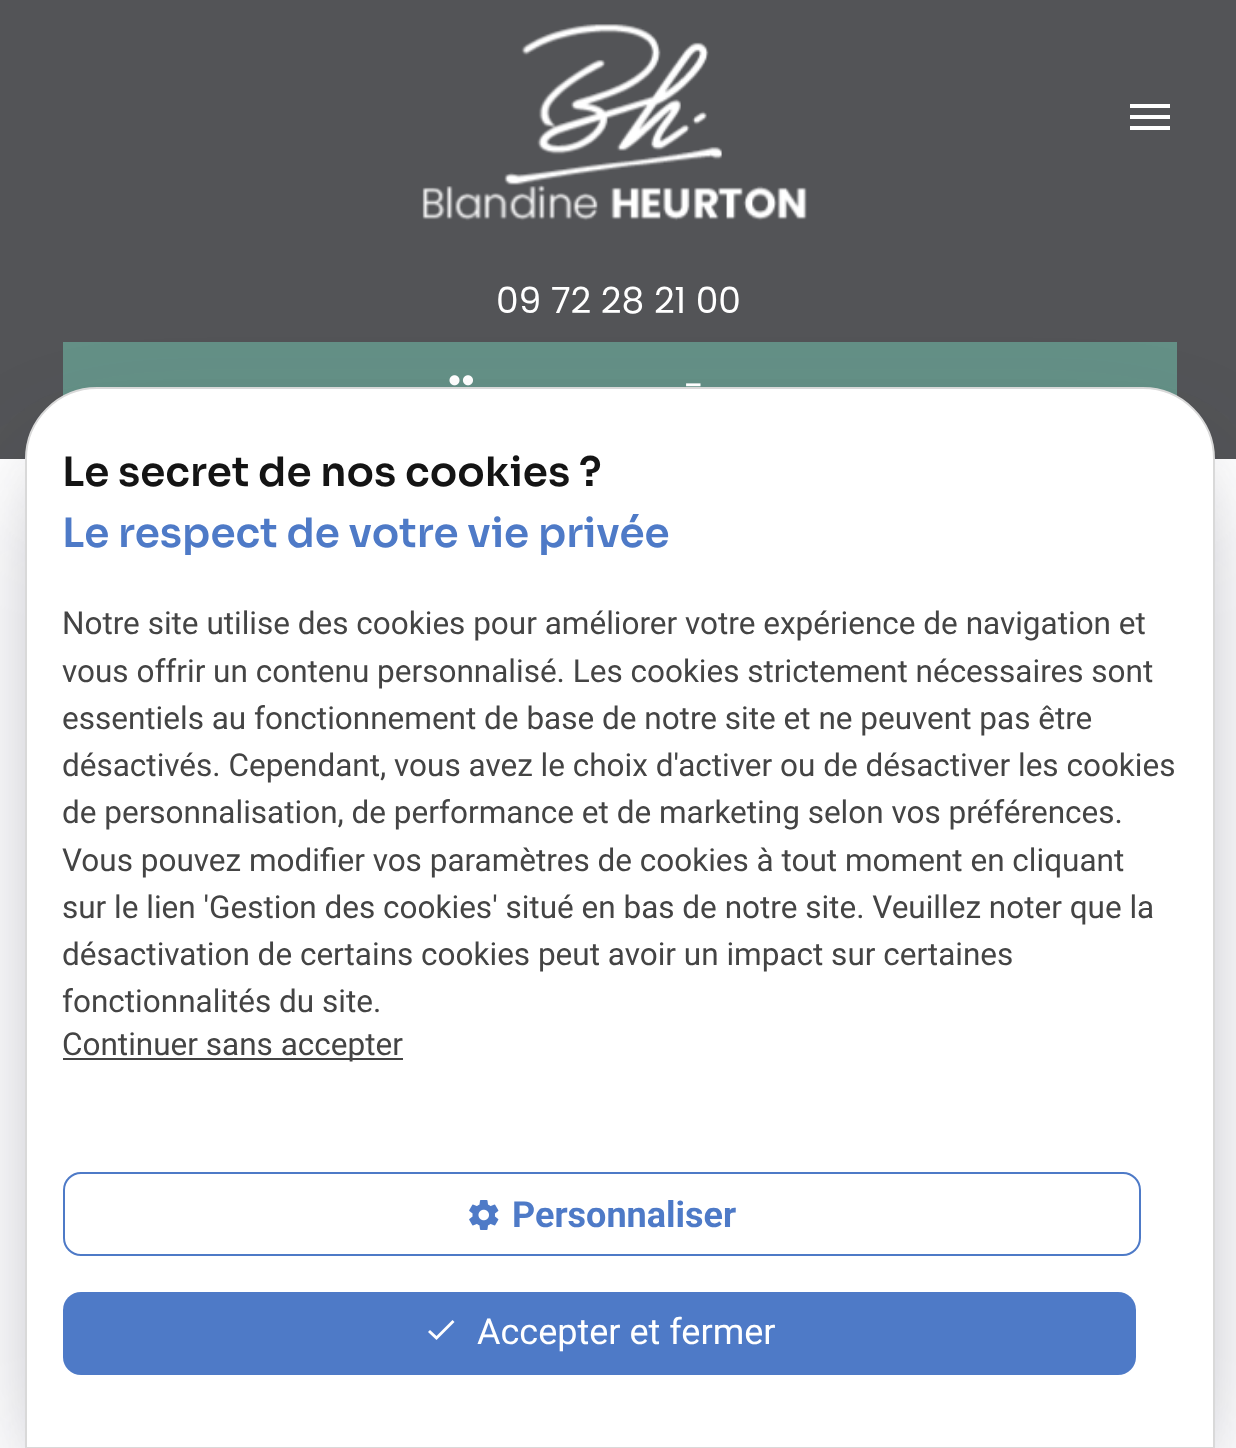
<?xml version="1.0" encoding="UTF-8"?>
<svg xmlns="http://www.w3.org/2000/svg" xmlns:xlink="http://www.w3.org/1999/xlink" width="1236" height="1448">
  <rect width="100%" height="100%" fill="#ffffff" />
  <rect width="1236" height="459" fill="#535457" />
  <image x="422" y="24" width="385" height="197" xlink:href="image1.png" />
  <path d="M 1130 104 h 40 v 4 h -40 z m 0 15 v -4 h 40 v 4 z m 0 11 v -4 h 40 v 4 z" fill="#ffffff" />
  <rect x="63" y="342" width="1114" height="54" fill="#649086" />
  <image x="449" y="375" width="24" height="11" xlink:href="image2.png" />
  <rect x="65" y="468" width="1110" height="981" rx="32" fill="#000000" fill-opacity="0.3" filter="blur(40.5px)" />
  <rect x="52" y="482" width="1136" height="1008" rx="45" fill="#32325d" fill-opacity="0.25" filter="blur(67.5px)" />
  <path d="M 97 388 h 1046 c 39 0 71 32 71 71 v 989 h -1188 v -989 c 0 -39 32 -71 71 -71 z" fill="#ffffff" stroke="#d9d9d9" stroke-width="2" />
  <rect x="63" y="1058" width="340" height="2" fill="#444444" />
  <rect x="64" y="1173" width="1076" height="82" rx="17" fill="none" stroke="#4e7ac7" stroke-width="2" />
  <image x="469" y="1200" width="30" height="30" xlink:href="image3.png" />
  <rect x="63" y="1292" width="1073" height="83" rx="18" fill="#4e7ac7" />
  <path d="M 436.5 1336 l 16 -16 l 2 2 l -18 18 l -8.5 -8 l 2 -2 z" fill="#ffffff" />
  <text x="496" y="313" style="font-family: Poppins; font-size: 36px; fill: #ffffff">09 72 28 21 00</text>
  <text x="684" y="398" style="font-family: Poppins; font-size: 36px; fill: #ffffff">-</text>
  <text x="62" y="486" style="font-family: Sora; font-size: 40.5px; font-weight: 600; fill: #141414">Le secret de nos cookies ?</text>
  <text x="62" y="547" style="font-family: Sora; font-size: 40.5px; font-weight: 600; fill: #4e7ac7">Le respect de votre vie privée</text>
  <text x="62" y="634" style="font-family: Roboto; font-size: 31.5px; fill: #444444">Notre site utilise des cookies pour améliorer votre expérience de navigation et</text>
  <text x="62" y="682" style="font-family: Roboto; font-size: 31.5px; fill: #444444">vous offrir un contenu personnalisé. Les cookies strictement nécessaires sont</text>
  <text x="62" y="729" style="font-family: Roboto; font-size: 31.5px; fill: #444444">essentiels au fonctionnement de base de notre site et ne peuvent pas être</text>
  <text x="62" y="776" style="font-family: Roboto; font-size: 31.5px; fill: #444444">désactivés. Cependant, vous avez le choix d'activer ou de désactiver les cookies</text>
  <text x="62" y="823" style="font-family: Roboto; font-size: 31.5px; fill: #444444">de personnalisation, de performance et de marketing selon vos préférences.</text>
  <text x="62" y="871" style="font-family: Roboto; font-size: 31.5px; fill: #444444">Vous pouvez modifier vos paramètres de cookies à tout moment en cliquant</text>
  <text x="62" y="918" style="font-family: Roboto; font-size: 31.5px; fill: #444444">sur le lien 'Gestion des cookies' situé en bas de notre site. Veuillez noter que la</text>
  <text x="62" y="965" style="font-family: Roboto; font-size: 31.5px; fill: #444444">désactivation de certains cookies peut avoir un impact sur certaines</text>
  <text x="62" y="1012" style="font-family: Roboto; font-size: 31.5px; fill: #444444">fonctionnalités du site.</text>
  <text x="62" y="1055" style="font-family: Roboto; font-size: 31.5px; fill: #444444">Continuer sans accepter</text>
  <text x="512" y="1227" style="font-family: Roboto; font-size: 36px; font-weight: bold; fill: #4e7ac7">Personnaliser</text>
  <text x="477" y="1344" style="font-family: Roboto; font-size: 36px; fill: #ffffff">Accepter et fermer</text>
</svg>
